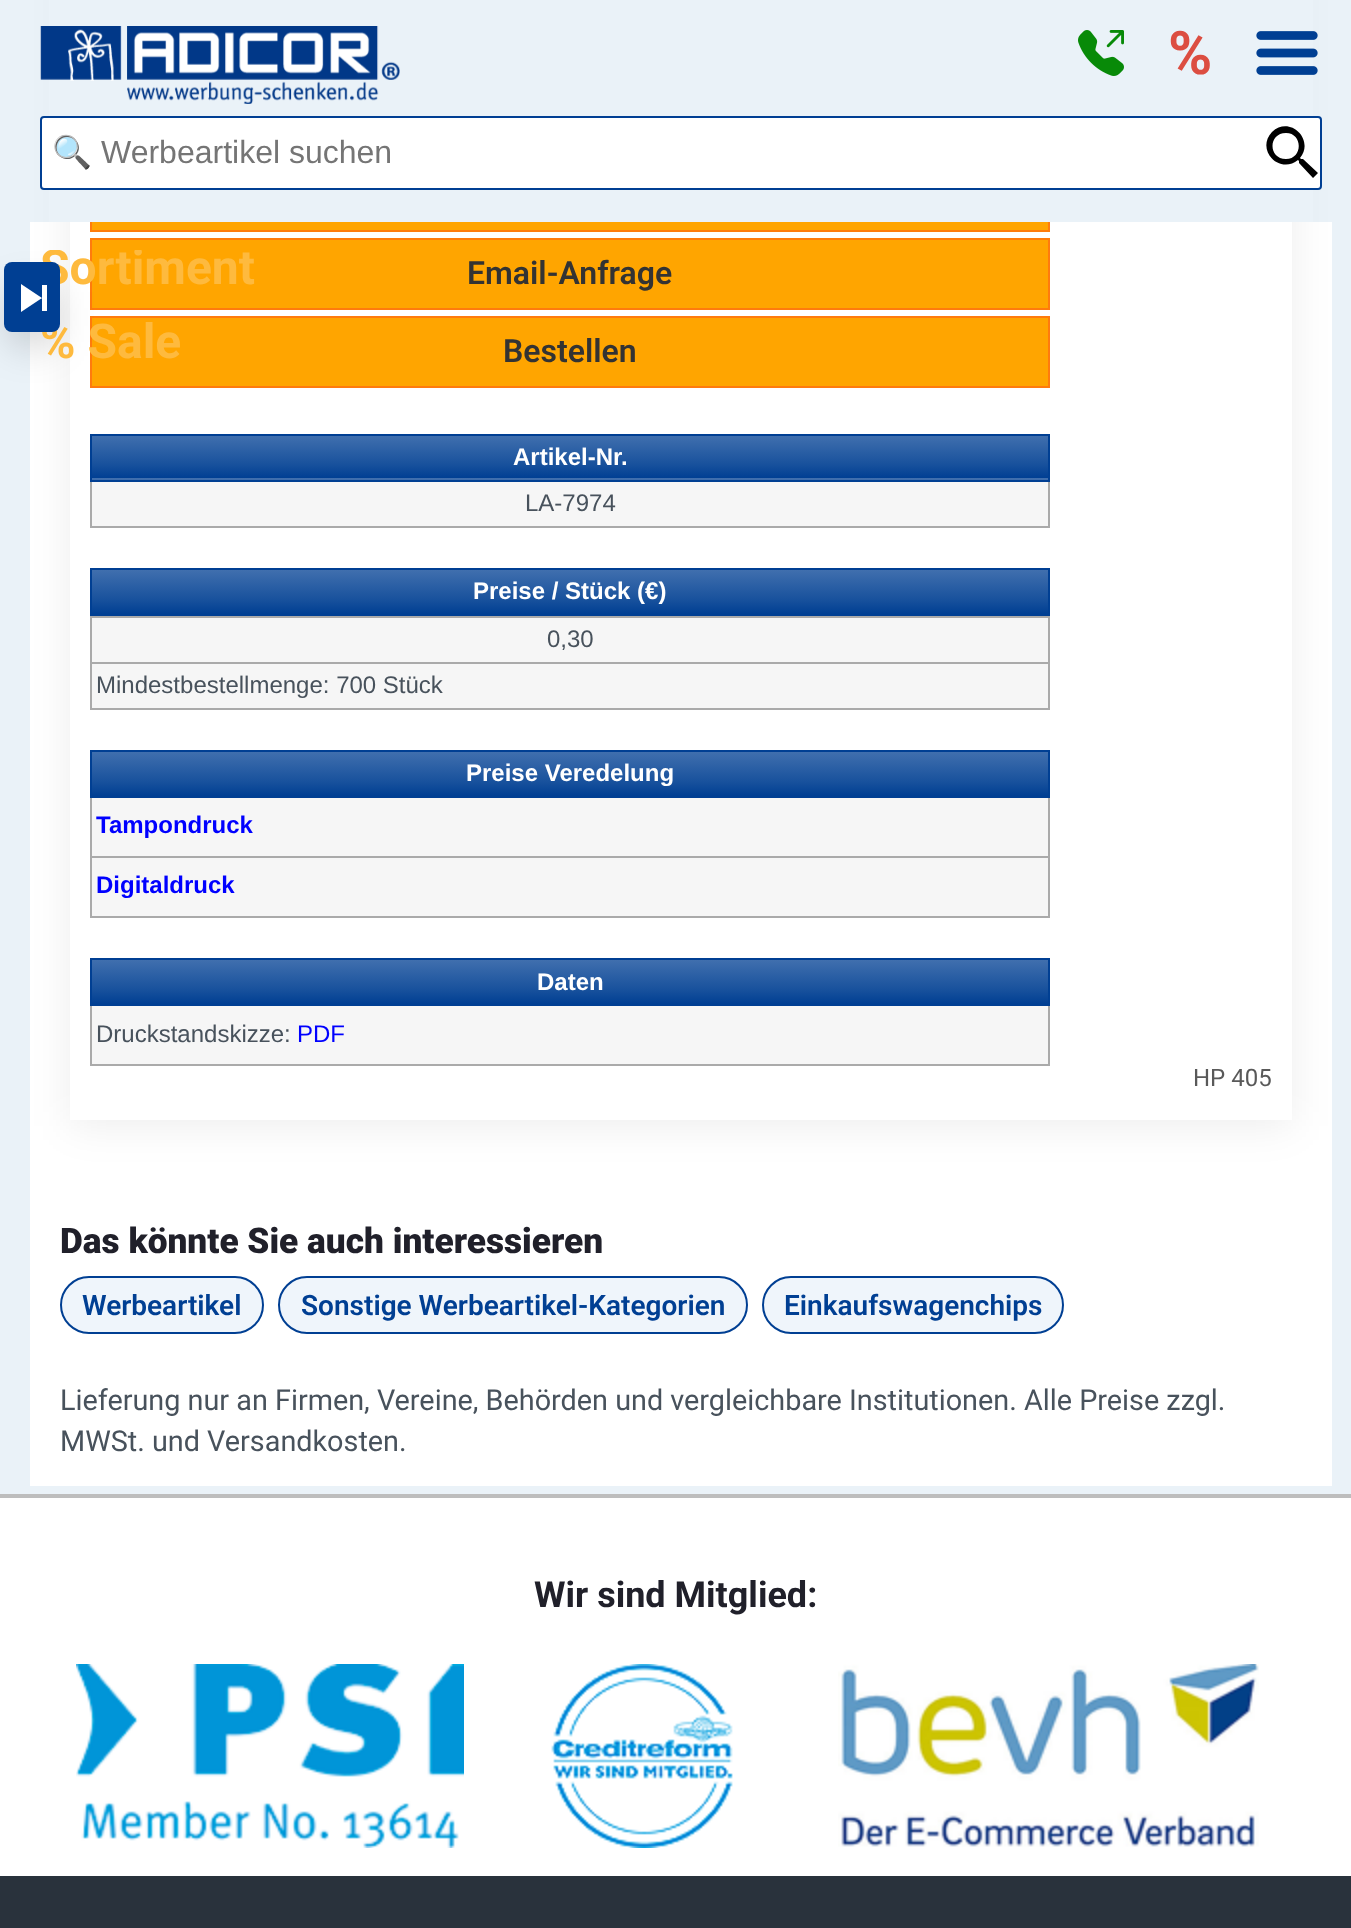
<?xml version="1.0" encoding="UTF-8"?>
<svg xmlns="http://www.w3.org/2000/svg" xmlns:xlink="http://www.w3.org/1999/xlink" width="1351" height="1928">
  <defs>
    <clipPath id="clip1"><path d="M 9 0 h 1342 v 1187 h -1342 z m 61 -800 h 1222 v 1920 h -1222 z" clip-rule="evenodd" /></clipPath>
    <linearGradient id="g1" gradientUnits="userSpaceOnUse" x1="571" y1="436" x2="571" y2="478"><stop offset="0" stop-color="#406fae" /><stop offset="0.66" stop-color="#19529d" /><stop offset="1" stop-color="#003f93" /></linearGradient>
    <linearGradient id="g2" gradientUnits="userSpaceOnUse" x1="571" y1="478" x2="571" y2="520"><stop offset="0" stop-color="#406fae" /><stop offset="0.66" stop-color="#19529d" /><stop offset="1" stop-color="#003f93" /></linearGradient>
    <linearGradient id="g3" gradientUnits="userSpaceOnUse" x1="570" y1="570" x2="570" y2="614"><stop offset="0" stop-color="#406fae" /><stop offset="0.66" stop-color="#19529d" /><stop offset="1" stop-color="#003f93" /></linearGradient>
    <linearGradient id="g4" gradientUnits="userSpaceOnUse" x1="570" y1="752" x2="570" y2="796"><stop offset="0" stop-color="#406fae" /><stop offset="0.66" stop-color="#19529d" /><stop offset="1" stop-color="#003f93" /></linearGradient>
    <linearGradient id="g5" gradientUnits="userSpaceOnUse" x1="570" y1="960" x2="570" y2="1004"><stop offset="0" stop-color="#406fae" /><stop offset="0.66" stop-color="#19529d" /><stop offset="1" stop-color="#003f93" /></linearGradient>
    <clipPath id="clip2"><rect x="40" y="250" width="1272" height="1548" /></clipPath>
  </defs>
  <rect width="100%" height="100%" fill="#eaf2f8" />
  <rect x="30" y="222" width="1302" height="1264" fill="#ffffff" />
  <g clip-path="url(#clip1)">
    <rect x="70" y="-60" width="1222" height="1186" fill="#000000" fill-opacity="0.07" filter="blur(20px)" />
  </g>
  <rect x="92" y="222" width="956" height="8" fill="#ffa500" />
  <rect x="91" y="161" width="958" height="70" fill="none" stroke="#ff7b0d" stroke-width="2" />
  <rect x="49" width="1264" height="222" fill="#eaf2f8" />
  <image x="1078" y="30" width="46" height="46" xlink:href="image1.png" />
  <image x="1256" y="31" width="62" height="44" xlink:href="image2.png" />
  <image x="40" y="26" width="360" height="78" xlink:href="image3.png" />
  <rect x="41" y="117" width="1280" height="72" rx="3" fill="#ffffff" stroke="#003f93" stroke-width="2" />
  <path d="M 1303 159 h -2 l -1 -1 c 15 -18 -10 -43 -28 -26 c -17 18 8 43 26 28 l 1 1 v 2 l 14 15 l 5 -5 z m -17 0 c -18 0 -18 -26 0 -26 c 17 0 17 26 0 26 z" fill="#000000" />
  <rect x="91" y="239" width="958" height="70" fill="#ffa500" stroke="#ff7b0d" stroke-width="2" />
  <rect x="91" y="317" width="958" height="70" fill="#ffa500" stroke="#ff7b0d" stroke-width="2" />
  <rect x="14" y="292" width="36" height="50" fill="#000000" fill-opacity="0.25" filter="blur(20px)" />
  <rect x="92" y="482" width="956" height="44" fill="#f6f6f6" />
  <rect x="90" y="434" width="960" height="2" fill="#003f93" />
  <rect x="90" y="434" width="2" height="46" fill="#003f93" />
  <rect x="92" y="436" width="956" height="42" fill="url(#g1)" />
  <rect x="92" y="478" width="958" height="2" fill="url(#g2)" />
  <rect x="1048" y="480" width="2" height="48" fill="#aaaaaa" />
  <rect x="1048" y="434" width="2" height="48" fill="#003f93" />
  <rect x="90" y="526" width="960" height="2" fill="#aaaaaa" />
  <rect x="90" y="480" width="2" height="48" fill="#aaaaaa" />
  <rect x="90" y="480" width="960" height="2" fill="#003f93" />
  <rect x="92" y="570" width="956" height="44" fill="url(#g3)" />
  <rect x="91" y="569" width="958" height="46" fill="none" stroke="#003f93" stroke-width="2" />
  <rect x="92" y="618" width="956" height="44" fill="#f6f6f6" />
  <rect x="90" y="616" width="960" height="2" fill="#aaaaaa" />
  <rect x="1048" y="616" width="2" height="94" fill="#aaaaaa" />
  <rect x="90" y="662" width="960" height="2" fill="#aaaaaa" />
  <rect x="90" y="616" width="2" height="48" fill="#aaaaaa" />
  <rect x="92" y="664" width="956" height="44" fill="#f6f6f6" />
  <rect x="90" y="708" width="960" height="2" fill="#aaaaaa" />
  <rect x="90" y="664" width="2" height="46" fill="#aaaaaa" />
  <rect x="92" y="752" width="956" height="44" fill="url(#g4)" />
  <rect x="91" y="751" width="958" height="46" fill="none" stroke="#003f93" stroke-width="2" />
  <rect x="92" y="798" width="956" height="58" fill="#f6f6f6" />
  <rect x="1048" y="798" width="2" height="120" fill="#aaaaaa" />
  <rect x="90" y="856" width="960" height="2" fill="#aaaaaa" />
  <rect x="90" y="798" width="2" height="60" fill="#aaaaaa" />
  <rect x="92" y="858" width="956" height="58" fill="#f6f6f6" />
  <rect x="90" y="916" width="960" height="2" fill="#aaaaaa" />
  <rect x="90" y="858" width="2" height="60" fill="#aaaaaa" />
  <rect x="92" y="960" width="956" height="44" fill="url(#g5)" />
  <rect x="91" y="959" width="958" height="46" fill="none" stroke="#003f93" stroke-width="2" />
  <rect x="92" y="1006" width="956" height="58" fill="#f6f6f6" />
  <rect x="1048" y="1006" width="2" height="60" fill="#aaaaaa" />
  <rect x="90" y="1064" width="960" height="2" fill="#aaaaaa" />
  <rect x="90" y="1006" width="2" height="60" fill="#aaaaaa" />
  <rect x="61" y="1277" width="202" height="56" rx="28" fill="#eff5fb" stroke="#003f93" stroke-width="2" />
  <rect x="279" y="1277" width="468" height="56" rx="28" fill="#eff5fb" stroke="#003f93" stroke-width="2" />
  <rect x="763" y="1277" width="300" height="56" rx="28" fill="#eff5fb" stroke="#003f93" stroke-width="2" />
  <rect y="1494" width="1351" height="4" fill="#bdbdbd" />
  <rect y="1498" width="1351" height="378" fill="#ffffff" />
  <image x="76" y="1664" width="388" height="184" xlink:href="image4.png" />
  <image x="551" y="1664" width="182" height="184" xlink:href="image5.png" />
  <image x="838" y="1664" width="421" height="183" xlink:href="image6.png" />
  <rect y="1876" width="1351" height="52" fill="#29323c" />
  <text x="1168" y="74" style="font-family: Roboto; font-size: 60px; font-weight: bold; fill: #dc4e41">%</text>
  <text x="52" y="163" style="font-family: Noto Color Emoji; font-size: 32px; fill: #757575">🔍</text>
  <text x="101" y="163" style="font-family: Liberation Sans; font-size: 32px; fill: #757575">Werbeartikel suchen</text>
  <g clip-path="url(#clip2)">
    <text x="40" y="284" style="font-family: Roboto; font-size: 48px; font-weight: bold; fill: #feba3e">Sortiment</text>
  </g>
  <text x="40" y="358" style="font-family: Roboto; font-size: 48px; font-weight: bold; fill: #feba3e">% Sale</text>
  <rect x="4" y="262" width="56" height="70" rx="8" fill="#003f93" />
  <path d="M 42 298 l -21 14 v -28 z m 5 -13 h -5 v 26 h 5 z" fill="#ffffff" />
  <text x="467" y="284" style="font-family: Roboto; font-size: 32px; font-weight: 600; fill: #333333">Email-Anfrage</text>
  <text x="503" y="362" style="font-family: Roboto; font-size: 32px; font-weight: 600; fill: #333333">Bestellen</text>
  <text x="513" y="465" style="font-family: Liberation Sans; font-size: 24px; font-weight: bold; fill: #ffffff">Artikel-Nr.</text>
  <text x="525" y="511" style="font-family: Liberation Sans; font-size: 24px; fill: #48525c">LA-7974</text>
  <text x="473" y="599" style="font-family: Liberation Sans; font-size: 24px; font-weight: bold; fill: #ffffff">Preise / Stück (€)</text>
  <text x="547" y="647" style="font-family: Liberation Sans; font-size: 24px; fill: #48525c">0,30</text>
  <text x="96" y="693" style="font-family: Liberation Sans; font-size: 24px; fill: #48525c">Mindestbestellmenge: 700 Stück</text>
  <text x="466" y="781" style="font-family: Liberation Sans; font-size: 24px; font-weight: bold; fill: #ffffff">Preise Veredelung</text>
  <text x="96" y="833" style="font-family: Liberation Sans; font-size: 24px; font-weight: bold; fill: #0000ff">Tampondruck</text>
  <text x="96" y="893" style="font-family: Liberation Sans; font-size: 24px; font-weight: bold; fill: #0000ff">Digitaldruck</text>
  <text x="537" y="990" style="font-family: Liberation Sans; font-size: 24px; font-weight: bold; fill: #ffffff">Daten</text>
  <text x="96" y="1042" style="font-family: Liberation Sans; font-size: 24px; fill: #48525c">Druckstandskizze:</text>
  <text x="297" y="1042" style="font-family: Liberation Sans; font-size: 24px; fill: #0000ff">PDF</text>
  <text x="1193" y="1086" style="font-family: Roboto; font-size: 24px; fill: #595959">HP 405</text>
  <text x="60" y="1253" style="font-family: Roboto; font-size: 35.25px; font-weight: 900; fill: #20202a">Das könnte Sie auch interessieren</text>
  <text x="82" y="1315" style="font-family: Roboto; font-size: 28px; font-weight: 600; fill: #003f93">Werbeartikel</text>
  <text x="301" y="1315" style="font-family: Roboto; font-size: 28px; font-weight: 600; fill: #003f93">Sonstige Werbeartikel-Kategorien</text>
  <text x="784" y="1315" style="font-family: Roboto; font-size: 28px; font-weight: 600; fill: #003f93">Einkaufswagenchips</text>
  <text x="60" y="1410" style="font-family: Roboto; font-size: 28.8px; fill: #48525c">Lieferung nur an Firmen, Vereine, Behörden und vergleichbare Institutionen. Alle Preise zzgl.</text>
  <text x="60" y="1451" style="font-family: Roboto; font-size: 28.8px; fill: #48525c">MWSt. und Versandkosten.</text>
  <text x="534" y="1607" style="font-family: Roboto; font-size: 36px; font-weight: bold; fill: #20202a">Wir sind Mitglied:</text>
</svg>
